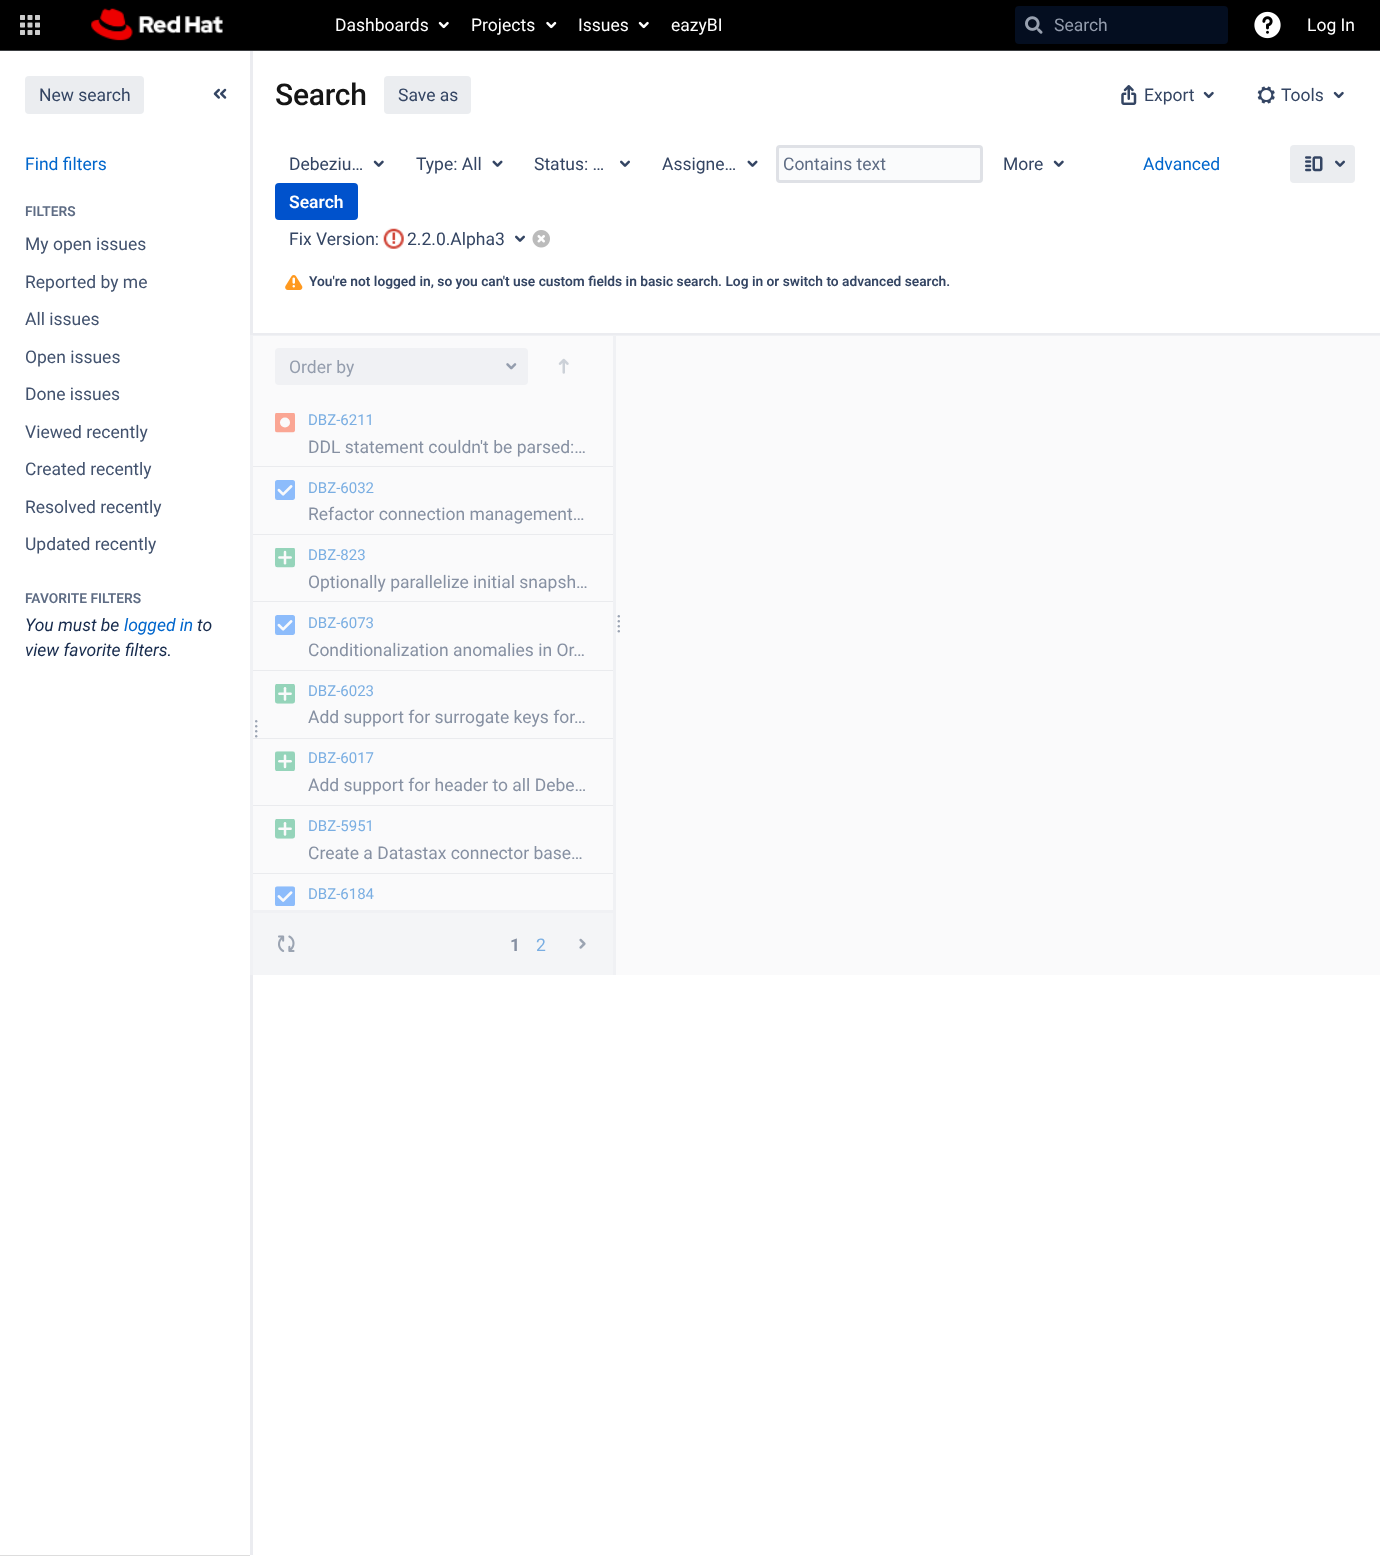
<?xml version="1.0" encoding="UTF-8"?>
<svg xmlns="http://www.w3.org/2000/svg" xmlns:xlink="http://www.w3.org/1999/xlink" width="1380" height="1556">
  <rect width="100%" height="100%" fill="#ffffff" />
  <rect width="1380" height="50" fill="#000000" />
  <rect y="50" width="1380" height="1" fill="#3c3f42" />
  <image x="20" y="15" width="20" height="20" xlink:href="image1.png" />
  <image x="91" y="8" width="132" height="33" xlink:href="image2.png" />
  <image x="438" y="21" width="11" height="8" xlink:href="image3.png" />
  <image x="546" y="21" width="11" height="8" xlink:href="image4.png" />
  <image x="638" y="21" width="11" height="8" xlink:href="image3.png" />
  <rect x="1015" y="6" width="213" height="38" rx="4" fill="#040e20" />
  <image x="1025" y="16" width="18" height="18" xlink:href="image5.png" />
  <image x="1254" y="11" width="27" height="28" xlink:href="image6.png" />
  <rect x="253" y="336" width="1127" height="639" fill="#fafafb" />
  <rect y="1555" width="250" height="1" fill="#dddddd" />
  <rect x="25" y="76" width="119" height="38" rx="4" fill="#ebedf0" />
  <image x="213" y="88" width="14" height="11" xlink:href="image7.png" />
  <rect x="250" y="333" width="1130" height="2" fill="#ebecf0" />
  <rect x="250" y="335" width="1130" height="1" fill="#f0f1f4" />
  <rect x="250" y="466" width="363" height="1" fill="#eaebee" />
  <rect x="250" y="534" width="363" height="1" fill="#eaebee" />
  <rect x="250" y="601" width="363" height="1" fill="#eaebee" />
  <rect x="250" y="670" width="363" height="1" fill="#eaebee" />
  <rect x="250" y="738" width="363" height="1" fill="#eaebee" />
  <rect x="250" y="805" width="363" height="1" fill="#eaebee" />
  <rect x="250" y="873" width="363" height="1" fill="#eaebee" />
  <rect x="250" y="910" width="363" height="3" fill="#f0f1f4" />
  <rect x="250" y="51" width="3" height="1504" fill="#ebecf0" />
  <rect x="250" y="335" width="3" height="640" fill="#f0f1f4" />
  <circle cx="256.2" cy="721.2" r="1.2" fill="#9ba4b3" />
  <circle cx="256.2" cy="726.2" r="1.2" fill="#9ba4b3" />
  <circle cx="256.2" cy="731.2" r="1.2" fill="#9ba4b3" />
  <circle cx="256.2" cy="736.2" r="1.2" fill="#9ba4b3" />
  <rect x="384" y="76" width="87" height="38" rx="4" fill="#ebedf0" />
  <image x="1121" y="85" width="16" height="20" xlink:href="image8.png" />
  <image x="1203" y="91" width="11" height="8" xlink:href="image9.png" />
  <image x="1257" y="86" width="18" height="18" xlink:href="image10.png" />
  <image x="1333" y="91" width="11" height="8" xlink:href="image9.png" />
  <image x="373" y="160" width="11" height="7" xlink:href="image11.png" />
  <image x="492" y="160" width="11" height="7" xlink:href="image12.png" />
  <image x="620" y="160" width="10" height="7" xlink:href="image13.png" />
  <image x="747" y="160" width="11" height="7" xlink:href="image12.png" />
  <rect x="777.5" y="146.5" width="204" height="35" rx="2.5" fill="#fafbfc" stroke="#dfe1e6" stroke-width="3" />
  <image x="1053" y="160" width="11" height="7" xlink:href="image11.png" />
  <rect x="275" y="183" width="83" height="37" rx="4" fill="#0052cc" />
  <image x="383" y="228" width="21" height="21" xlink:href="image14.png" />
  <image x="515" y="235" width="10" height="7" xlink:href="image13.png" />
  <image x="532" y="230" width="18" height="18" xlink:href="image15.png" />
  <rect x="1290" y="145" width="65" height="38" rx="4" fill="#ebedf0" />
  <image x="1305" y="156" width="18" height="16" xlink:href="image16.png" />
  <image x="1335" y="160" width="10" height="7" xlink:href="image17.png" />
  <image x="285" y="275" width="18" height="15" xlink:href="image18.png" />
  <rect x="275" y="348" width="253" height="37" rx="4" fill="#f0f1f4" />
  <image x="506" y="363" width="11" height="7" xlink:href="image19.png" />
  <image x="558" y="358" width="11" height="16" xlink:href="image20.png" />
  <image x="275" y="413" width="20" height="20" xlink:href="image21.png" />
  <image x="275" y="480" width="20" height="20" xlink:href="image22.png" />
  <image x="275" y="548" width="20" height="20" xlink:href="image23.png" />
  <image x="275" y="615" width="20" height="20" xlink:href="image24.png" />
  <image x="275" y="684" width="20" height="20" xlink:href="image25.png" />
  <image x="275" y="751" width="20" height="20" xlink:href="image26.png" />
  <image x="275" y="819" width="20" height="20" xlink:href="image25.png" />
  <image x="275" y="886" width="20" height="20" xlink:href="image27.png" />
  <rect x="253" y="913" width="360" height="62" fill="#f4f5f7" />
  <image x="278" y="935" width="17" height="17" xlink:href="image28.png" />
  <image x="579" y="938" width="7" height="11" xlink:href="image29.png" />
  <rect x="613" y="335" width="3" height="640" fill="#f0f1f4" />
  <circle cx="618.8" cy="616.2" r="1.2" fill="#9ba4b3" />
  <circle cx="618.8" cy="621.2" r="1.2" fill="#9ba4b3" />
  <circle cx="618.8" cy="626.2" r="1.2" fill="#9ba4b3" />
  <circle cx="618.8" cy="631.2" r="1.2" fill="#9ba4b3" />
  <text x="335" y="31" style="font-family: Roboto; font-size: 17.5px; fill: #ffffff">Dashboards</text>
  <text x="471" y="31" style="font-family: Roboto; font-size: 17.5px; fill: #ffffff">Projects</text>
  <text x="578" y="31" style="font-family: Roboto; font-size: 17.5px; fill: #ffffff">Issues</text>
  <text x="671" y="31" style="font-family: Roboto; font-size: 17.5px; fill: #ffffff">eazyBI</text>
  <text x="1054" y="31" style="font-family: Roboto; font-size: 17.5px; fill: #949dad">Search</text>
  <text x="1307" y="31" style="font-family: Roboto; font-size: 17.5px; fill: #ffffff">Log In</text>
  <text x="39" y="101" style="font-family: Roboto; font-size: 17.5px; fill: #344563">New search</text>
  <text x="25" y="170" style="font-family: Roboto; font-size: 17.5px; fill: #0066cc">Find filters</text>
  <text x="25" y="216" style="font-family: Roboto; font-size: 13.75px; font-weight: 600; fill: #5e6c84">FILTERS</text>
  <text x="25" y="250" style="font-family: Roboto; font-size: 17.5px; fill: #42526e">My open issues</text>
  <text x="25" y="288" style="font-family: Roboto; font-size: 17.5px; fill: #42526e">Reported by me</text>
  <text x="25" y="325" style="font-family: Roboto; font-size: 17.5px; fill: #42526e">All issues</text>
  <text x="25" y="363" style="font-family: Roboto; font-size: 17.5px; fill: #42526e">Open issues</text>
  <text x="25" y="400" style="font-family: Roboto; font-size: 17.5px; fill: #42526e">Done issues</text>
  <text x="25" y="438" style="font-family: Roboto; font-size: 17.5px; fill: #42526e">Viewed recently</text>
  <text x="25" y="475" style="font-family: Roboto; font-size: 17.5px; fill: #42526e">Created recently</text>
  <text x="25" y="513" style="font-family: Roboto; font-size: 17.5px; fill: #42526e">Resolved recently</text>
  <text x="25" y="550" style="font-family: Roboto; font-size: 17.5px; fill: #42526e">Updated recently</text>
  <text x="25" y="603" style="font-family: Roboto; font-size: 13.75px; font-weight: 600; fill: #5e6c84">FAVORITE FILTERS</text>
  <text x="25" y="631" style="font-family: Roboto; font-size: 17.5px; font-style: italic; fill: #172b4d">You must be</text>
  <text x="124" y="631" style="font-family: Roboto; font-size: 17.5px; font-style: italic; fill: #0066cc">logged in</text>
  <text x="197" y="631" style="font-family: Roboto; font-size: 17.5px; font-style: italic; fill: #172b4d">to</text>
  <text x="25" y="656" style="font-family: Roboto; font-size: 17.5px; font-style: italic; fill: #172b4d">view favorite filters.</text>
  <text x="275" y="105" style="font-family: Roboto; font-size: 30px; font-weight: 500; letter-spacing: -0.25px; fill: #151515">Search</text>
  <text x="398" y="101" style="font-family: Roboto; font-size: 17.5px; fill: #344563">Save as</text>
  <text x="1144" y="101" style="font-family: Roboto; font-size: 17.5px; fill: #344563">Export</text>
  <text x="1281" y="101" style="font-family: Roboto; font-size: 17.5px; fill: #344563">Tools</text>
  <text x="289" y="170" style="font-family: Roboto; font-size: 17.5px; fill: #344563">Debeziu…</text>
  <text x="416" y="170" style="font-family: Roboto; font-size: 17.5px; fill: #344563">Type: All</text>
  <text x="534" y="170" style="font-family: Roboto; font-size: 17.5px; fill: #344563">Status: …</text>
  <text x="662" y="170" style="font-family: Roboto; font-size: 17.5px; fill: #344563">Assigne…</text>
  <text x="783" y="170" style="font-family: Roboto; font-size: 17.5px; fill: #5e6c84">Contains text</text>
  <text x="1003" y="170" style="font-family: Roboto; font-size: 17.5px; fill: #344563">More</text>
  <text x="289" y="208" style="font-family: Roboto; font-size: 17.5px; font-weight: 600; fill: #ffffff">Search</text>
  <text x="289" y="245" style="font-family: Roboto; font-size: 17.5px; fill: #344563">Fix Version:</text>
  <text x="407" y="245" style="font-family: Roboto; font-size: 17.5px; fill: #344563">2.2.0.Alpha3</text>
  <text x="1143" y="170" style="font-family: Roboto; font-size: 17.5px; fill: #0066cc">Advanced</text>
  <text x="309" y="286" style="font-family: Roboto; font-size: 13.75px; font-weight: 600; fill: #344563">You're not logged in, so you can't use custom fields in basic search. Log in or switch to advanced search.</text>
  <text x="289" y="373" style="font-family: Roboto; font-size: 17.5px; fill: #949dad">Order by</text>
  <text x="308" y="425" style="font-family: Roboto; font-size: 15px; fill: #7aaee2">DBZ-6211</text>
  <text x="308" y="453" style="font-family: Roboto; font-size: 17.5px; fill: #8690a2">DDL statement couldn't be parsed:…</text>
  <text x="308" y="493" style="font-family: Roboto; font-size: 15px; fill: #7aaee2">DBZ-6032</text>
  <text x="308" y="520" style="font-family: Roboto; font-size: 17.5px; fill: #8690a2">Refactor connection management…</text>
  <text x="308" y="560" style="font-family: Roboto; font-size: 15px; fill: #7aaee2">DBZ-823</text>
  <text x="308" y="588" style="font-family: Roboto; font-size: 17.5px; fill: #8690a2">Optionally parallelize initial snapsh…</text>
  <text x="308" y="628" style="font-family: Roboto; font-size: 15px; fill: #7aaee2">DBZ-6073</text>
  <text x="308" y="656" style="font-family: Roboto; font-size: 17.5px; fill: #8690a2">Conditionalization anomalies in Or…</text>
  <text x="308" y="696" style="font-family: Roboto; font-size: 15px; fill: #7aaee2">DBZ-6023</text>
  <text x="308" y="723" style="font-family: Roboto; font-size: 17.5px; fill: #8690a2">Add support for surrogate keys for…</text>
  <text x="308" y="763" style="font-family: Roboto; font-size: 15px; fill: #7aaee2">DBZ-6017</text>
  <text x="308" y="791" style="font-family: Roboto; font-size: 17.5px; fill: #8690a2">Add support for header to all Debe…</text>
  <text x="308" y="831" style="font-family: Roboto; font-size: 15px; fill: #7aaee2">DBZ-5951</text>
  <text x="308" y="859" style="font-family: Roboto; font-size: 17.5px; fill: #8690a2">Create a Datastax connector base…</text>
  <text x="308" y="899" style="font-family: Roboto; font-size: 15px; fill: #7aaee2">DBZ-6184</text>
  <text x="510" y="951" style="font-family: Roboto; font-size: 17.5px; font-weight: bold; fill: #8690a2">1</text>
  <text x="536" y="951" style="font-family: Roboto; font-size: 17.5px; fill: #7aaee2">2</text>
</svg>
